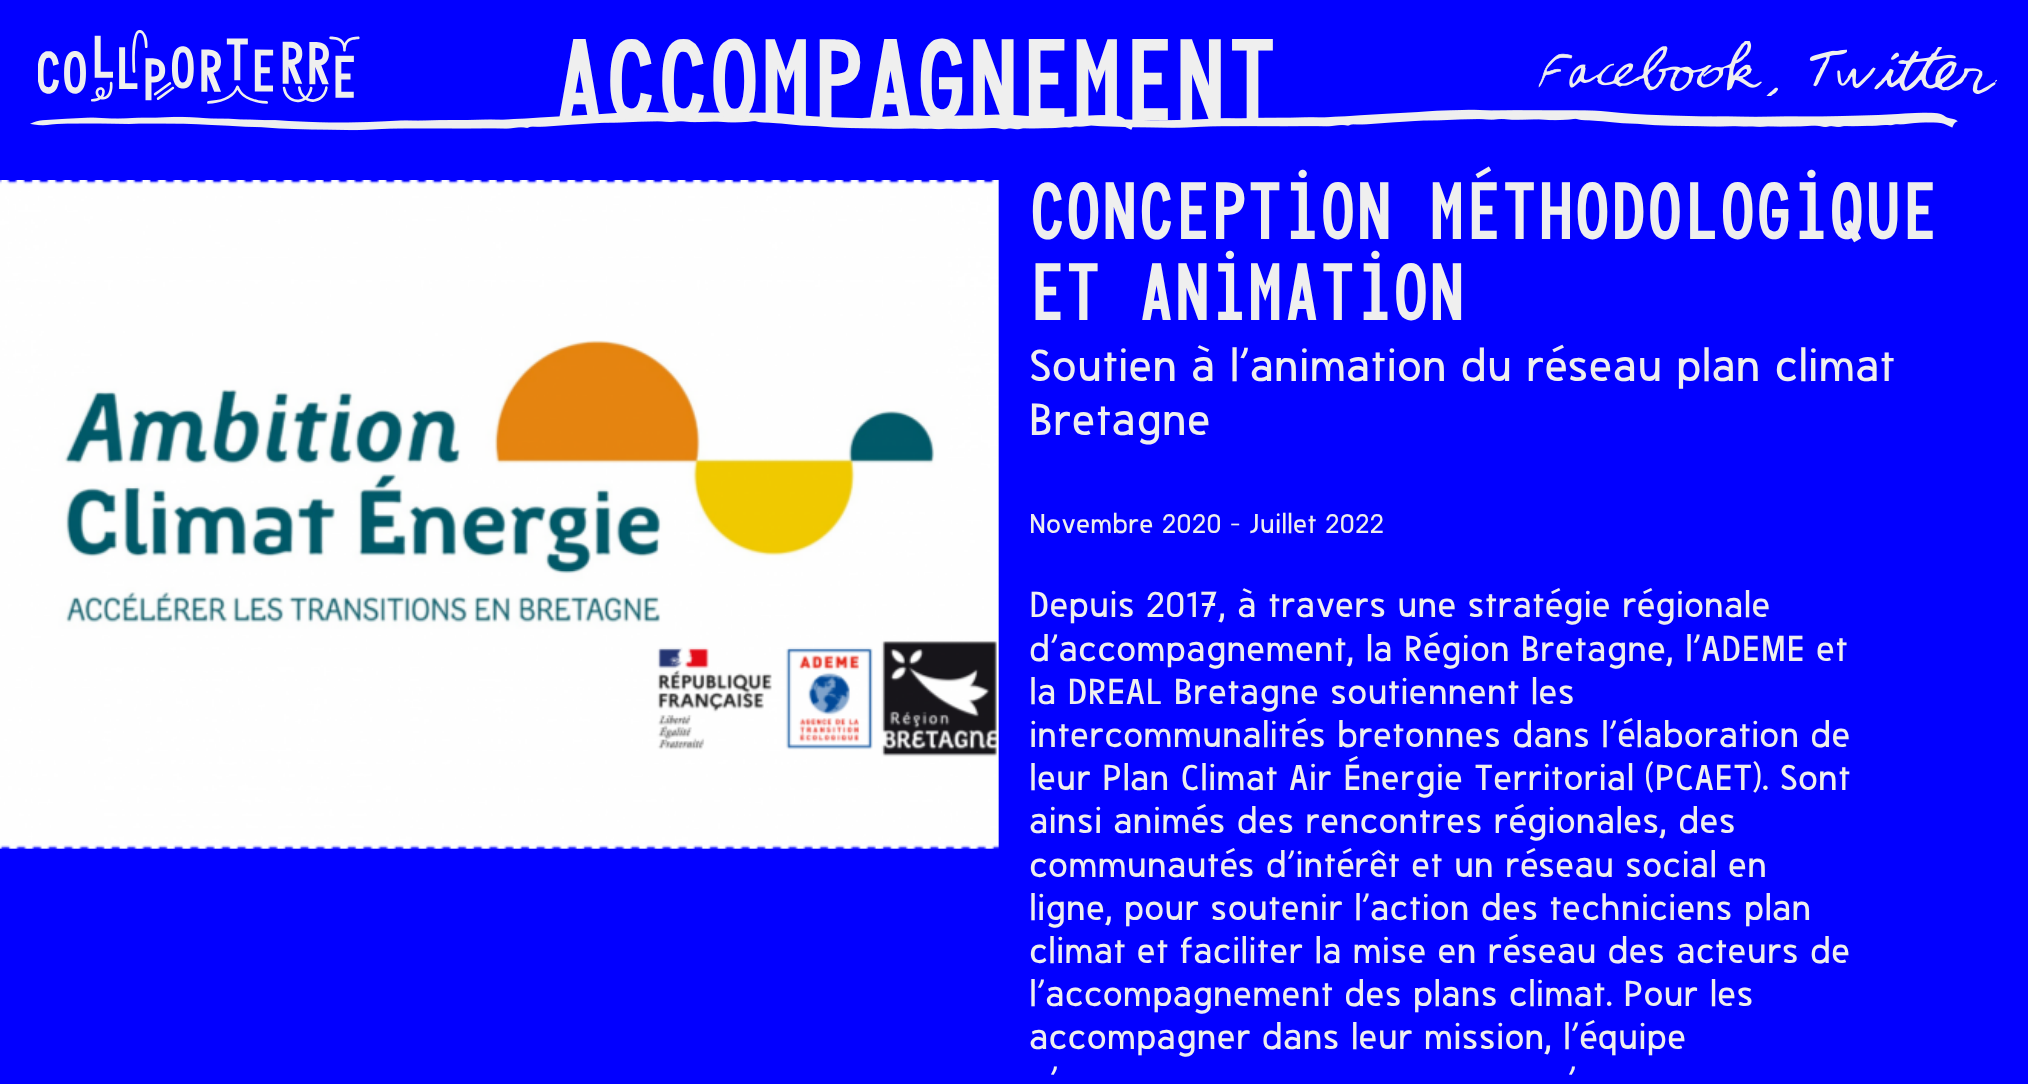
<?xml version="1.0" encoding="UTF-8"?>
<svg xmlns="http://www.w3.org/2000/svg" xmlns:xlink="http://www.w3.org/1999/xlink" width="2028" height="1084">
  <rect width="100%" height="100%" fill="#0200ff" />
  <image x="30" y="109" width="1928" height="22" xlink:href="image1.png" />
  <image x="38" y="30" width="322" height="74" xlink:href="image2.png" />
  <image x="1538" y="41" width="240" height="55" xlink:href="image3.png" />
  <image x="1809" y="47" width="188" height="47" xlink:href="image4.png" />
  <image x="0" y="180" width="999" height="669" xlink:href="image5.png" />
  <text x="553" y="120" style="font-family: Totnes; font-size: 115.5px; fill: #efefef">Accompagnement</text>
  <text x="1029" y="239" style="font-family: Totnes; font-size: 81px; fill: #efefef">Conception méthodologique</text>
  <text x="1029" y="320" style="font-family: Totnes; font-size: 81px; fill: #efefef">et Animation</text>
  <text x="1029" y="381" style="font-family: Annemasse; font-size: 45px; fill: #efefef">Soutien à l'animation du réseau plan climat</text>
  <text x="1029" y="435" style="font-family: Annemasse; font-size: 45px; fill: #efefef">Bretagne</text>
  <text x="1029" y="533" style="font-family: Annemasse; font-size: 27px; fill: #efefef">Novembre 2020 - Juillet 2022</text>
  <text x="1029" y="617" style="font-family: Annemasse; font-size: 36px; fill: #efefef">Depuis 2017, à travers une stratégie régionale</text>
  <text x="1029" y="661" style="font-family: Annemasse; font-size: 36px; fill: #efefef">d’accompagnement, la Région Bretagne, l’ADEME et</text>
  <text x="1029" y="704" style="font-family: Annemasse; font-size: 36px; fill: #efefef">la DREAL Bretagne soutiennent les</text>
  <text x="1029" y="747" style="font-family: Annemasse; font-size: 36px; fill: #efefef">intercommunalités bretonnes dans l’élaboration de</text>
  <text x="1029" y="790" style="font-family: Annemasse; font-size: 36px; fill: #efefef">leur Plan Climat Air Énergie Territorial (PCAET). Sont</text>
  <text x="1029" y="833" style="font-family: Annemasse; font-size: 36px; fill: #efefef">ainsi animés des rencontres régionales, des</text>
  <text x="1029" y="877" style="font-family: Annemasse; font-size: 36px; fill: #efefef">communautés d’intérêt et un réseau social en</text>
  <text x="1029" y="920" style="font-family: Annemasse; font-size: 36px; fill: #efefef">ligne, pour soutenir l’action des techniciens plan</text>
  <text x="1029" y="963" style="font-family: Annemasse; font-size: 36px; fill: #efefef">climat et faciliter la mise en réseau des acteurs de</text>
  <text x="1029" y="1006" style="font-family: Annemasse; font-size: 36px; fill: #efefef">l’accompagnement des plans climat. Pour les</text>
  <text x="1029" y="1049" style="font-family: Annemasse; font-size: 36px; fill: #efefef">accompagner dans leur mission, l’équipe</text>
  <text x="1050" y="1093" style="font-family: Annemasse; font-size: 36px; fill: #efefef">’</text>
  <text x="1568" y="1093" style="font-family: Annemasse; font-size: 36px; fill: #efefef">’</text>
</svg>
